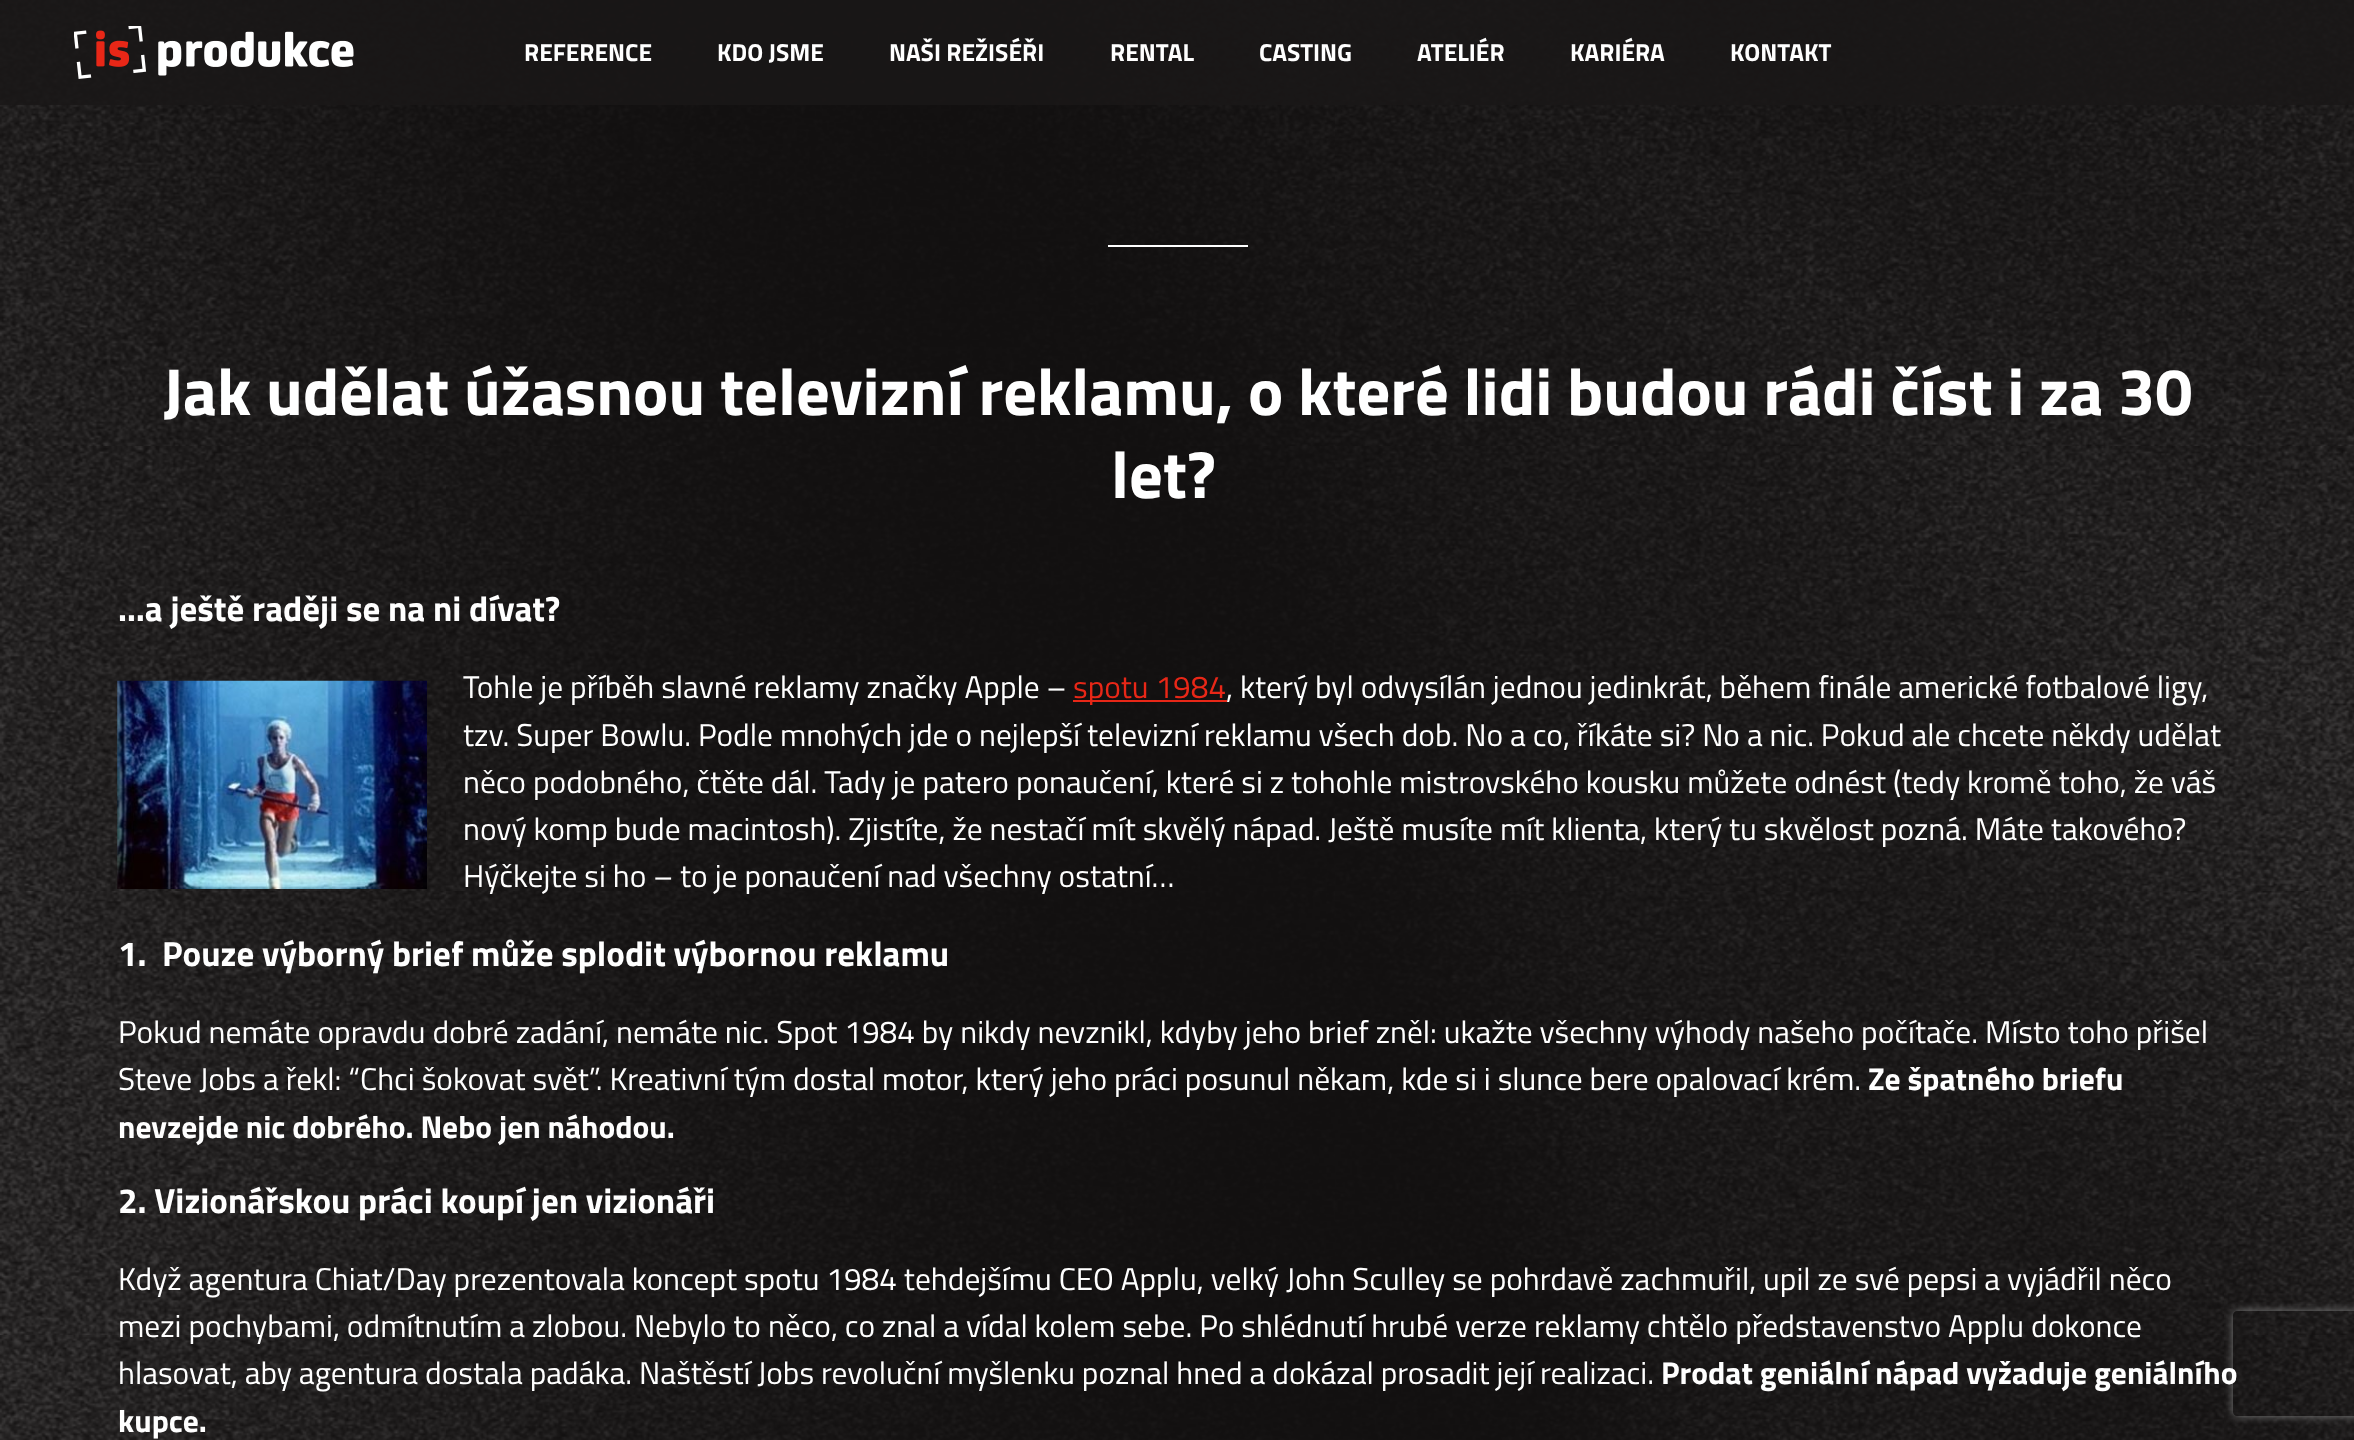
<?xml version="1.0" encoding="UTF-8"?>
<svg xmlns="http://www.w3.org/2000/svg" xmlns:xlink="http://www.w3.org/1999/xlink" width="2354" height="1440">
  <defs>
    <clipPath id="clip1"><path d="M 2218 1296 h 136 v 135 h -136 z m 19 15 h 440 c 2 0 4 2 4 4 v 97 c 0 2 -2 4 -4 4 h -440 c -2 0 -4 -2 -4 -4 v -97 c 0 -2 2 -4 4 -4 z" clip-rule="evenodd" /></clipPath>
  </defs>
  <rect width="100%" height="100%" fill="#1a1818" />
  <image x="0" y="0" width="2354" height="1440" xlink:href="image1.png" />
  <rect width="2354" height="105" fill="#1a1818" fill-opacity="0.85" />
  <image x="74" y="26" width="280" height="53" xlink:href="image2.png" />
  <rect x="1108" y="245" width="140" height="2" fill="#ffffff" />
  <image x="117" y="680" width="310" height="209" xlink:href="image3.png" />
  <rect x="1073" y="700" width="154" height="2" fill="#e82717" />
  <g clip-path="url(#clip1)">
    <rect x="2233" y="1311" width="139" height="105" rx="4" fill="#808080" filter="blur(4.5px)" />
  </g>
  <text x="524" y="61" style="font-family: Titillium Web; font-size: 24.5px; font-weight: bold; fill: #ffffff">REFERENCE</text>
  <text x="717" y="61" style="font-family: Titillium Web; font-size: 24.5px; font-weight: bold; fill: #ffffff">KDO JSME</text>
  <text x="889" y="61" style="font-family: Titillium Web; font-size: 24.5px; font-weight: bold; fill: #ffffff">NAŠI REŽISÉŘI</text>
  <text x="1110" y="61" style="font-family: Titillium Web; font-size: 24.5px; font-weight: bold; fill: #ffffff">RENTAL</text>
  <text x="1259" y="61" style="font-family: Titillium Web; font-size: 24.5px; font-weight: bold; fill: #ffffff">CASTING</text>
  <text x="1417" y="61" style="font-family: Titillium Web; font-size: 24.5px; font-weight: bold; fill: #ffffff">ATELIÉR</text>
  <text x="1570" y="61" style="font-family: Titillium Web; font-size: 24.5px; font-weight: bold; fill: #ffffff">KARIÉRA</text>
  <text x="1730" y="61" style="font-family: Titillium Web; font-size: 24.5px; font-weight: bold; fill: #ffffff">KONTAKT</text>
  <text x="163" y="415" style="font-family: Titillium Web; font-size: 66.5px; font-weight: bold; fill: #ffffff">Jak udělat úžasnou televizní reklamu, o které lidi budou rádi číst i za 30</text>
  <text x="1111" y="498" style="font-family: Titillium Web; font-size: 66.5px; font-weight: bold; fill: #ffffff">let?</text>
  <text x="118" y="621" style="font-family: Titillium Web; font-size: 35px; font-weight: bold; fill: #ffffff">…a ještě raději se na ni dívat?</text>
  <text x="463" y="698" style="font-family: Titillium Web; font-size: 31.5px; fill: #ffffff">Tohle je příběh slavné reklamy značky Apple –</text>
  <text x="1073" y="698" style="font-family: Titillium Web; font-size: 31.5px; fill: #e82717">spotu 1984</text>
  <text x="1226" y="698" style="font-family: Titillium Web; font-size: 31.5px; fill: #ffffff">, který byl odvysílán jednou jedinkrát, během finále americké fotbalové ligy,</text>
  <text x="463" y="746" style="font-family: Titillium Web; font-size: 31.5px; fill: #ffffff">tzv. Super Bowlu. Podle mnohých jde o nejlepší televizní reklamu všech dob. No a co, říkáte si? No a nic. Pokud ale chcete někdy udělat</text>
  <text x="463" y="793" style="font-family: Titillium Web; font-size: 31.5px; fill: #ffffff">něco podobného, čtěte dál. Tady je patero ponaučení, které si z tohohle mistrovského kousku můžete odnést (tedy kromě toho, že váš</text>
  <text x="463" y="840" style="font-family: Titillium Web; font-size: 31.5px; fill: #ffffff">nový komp bude macintosh). Zjistíte, že nestačí mít skvělý nápad. Ještě musíte mít klienta, který tu skvělost pozná. Máte takového?</text>
  <text x="463" y="887" style="font-family: Titillium Web; font-size: 31.5px; fill: #ffffff">Hýčkejte si ho – to je ponaučení nad všechny ostatní…</text>
  <text x="118" y="966" style="font-family: Titillium Web; font-size: 35px; font-weight: bold; fill: #ffffff" xml:space="preserve">1.  Pouze výborný brief může splodit výbornou reklamu</text>
  <text x="118" y="1043" style="font-family: Titillium Web; font-size: 31.5px; fill: #ffffff">Pokud nemáte opravdu dobré zadání, nemáte nic. Spot 1984 by nikdy nevznikl, kdyby jeho brief zněl: ukažte všechny výhody našeho počítače. Místo toho přišel</text>
  <text x="118" y="1090" style="font-family: Titillium Web; font-size: 31.5px; fill: #ffffff">Steve Jobs a řekl: “Chci šokovat svět”. Kreativní tým dostal motor, který jeho práci posunul někam, kde si i slunce bere opalovací krém.</text>
  <text x="1868" y="1090" style="font-family: Titillium Web; font-size: 31.5px; font-weight: bold; fill: #ffffff">Ze špatného briefu</text>
  <text x="118" y="1138" style="font-family: Titillium Web; font-size: 31.5px; font-weight: bold; fill: #ffffff">nevzejde nic dobrého. Nebo jen náhodou.</text>
  <text x="118" y="1213" style="font-family: Titillium Web; font-size: 35px; font-weight: bold; fill: #ffffff">2. Vizionářskou práci koupí jen vizionáři</text>
  <text x="118" y="1290" style="font-family: Titillium Web; font-size: 31.5px; fill: #ffffff">Když agentura Chiat/Day prezentovala koncept spotu 1984 tehdejšímu CEO Applu, velký John Sculley se pohrdavě zachmuřil, upil ze své pepsi a vyjádřil něco</text>
  <text x="118" y="1337" style="font-family: Titillium Web; font-size: 31.5px; fill: #ffffff">mezi pochybami, odmítnutím a zlobou. Nebylo to něco, co znal a vídal kolem sebe. Po shlédnutí hrubé verze reklamy chtělo představenstvo Applu dokonce</text>
  <text x="118" y="1384" style="font-family: Titillium Web; font-size: 31.5px; fill: #ffffff">hlasovat, aby agentura dostala padáka. Naštěstí Jobs revoluční myšlenku poznal hned a dokázal prosadit její realizaci.</text>
  <text x="1661" y="1384" style="font-family: Titillium Web; font-size: 31.5px; font-weight: bold; fill: #ffffff">Prodat geniální nápad vyžaduje geniálního</text>
  <text x="118" y="1432" style="font-family: Titillium Web; font-size: 31.5px; font-weight: bold; fill: #ffffff">kupce.</text>
</svg>
